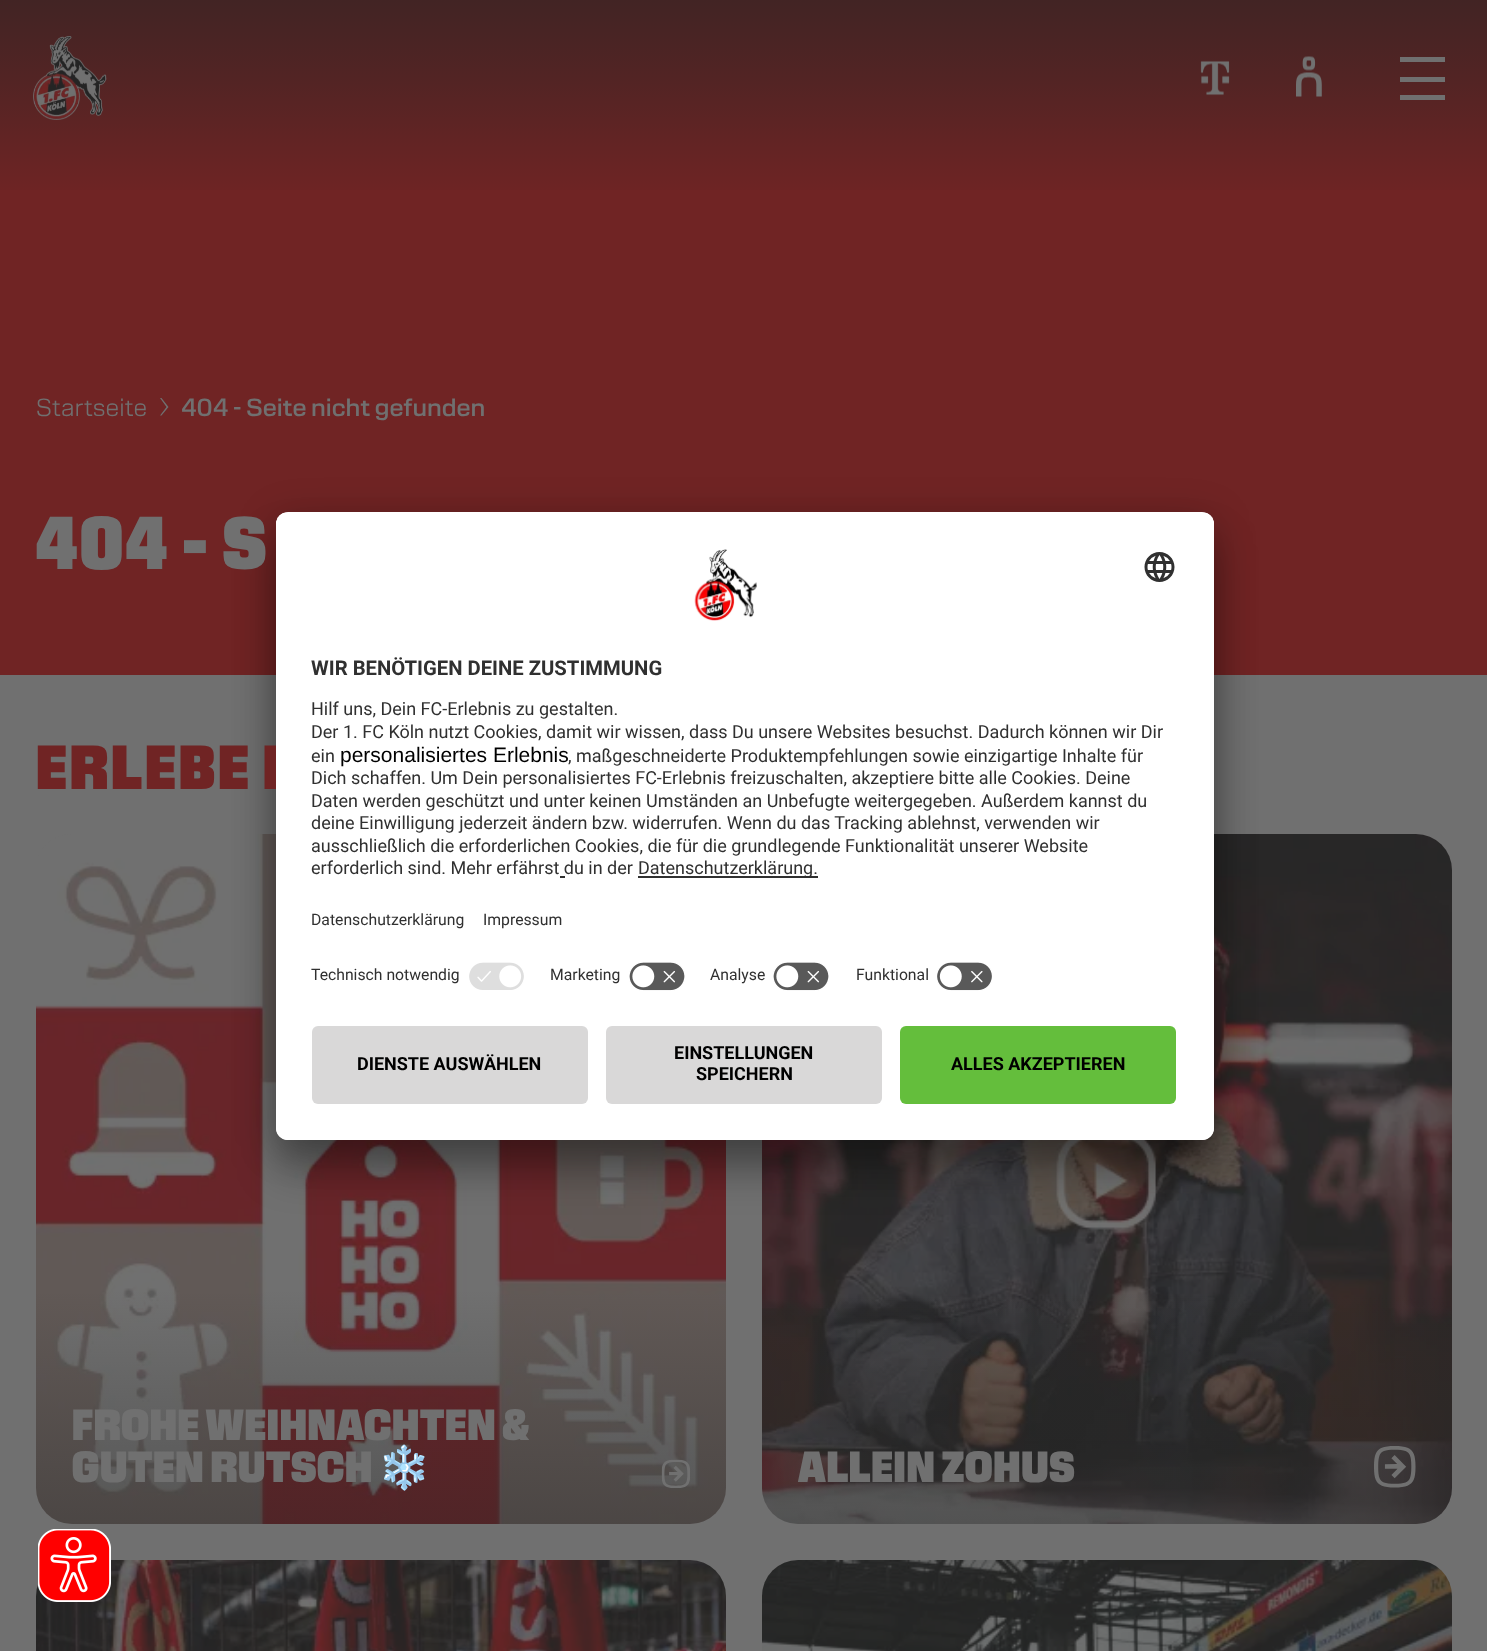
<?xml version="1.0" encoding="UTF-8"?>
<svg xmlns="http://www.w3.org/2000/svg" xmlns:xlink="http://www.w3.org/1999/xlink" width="1487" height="1651">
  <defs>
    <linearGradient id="g1" gradientUnits="userSpaceOnUse" x1="744" y1="0" x2="744" y2="201"><stop offset="0" stop-color="#562424" /><stop offset="0.66" stop-color="#702424" /></linearGradient>
    <linearGradient id="g2" gradientUnits="userSpaceOnUse" x1="744" y1="0" x2="744" y2="201"><stop offset="0" stop-color="#242424" stop-opacity="0.4" /><stop offset="0.64" stop-color="#242424" stop-opacity="0.22" /><stop offset="0.83" stop-color="#242424" stop-opacity="0.1" /><stop offset="1" stop-color="#242424" stop-opacity="0" /></linearGradient>
    <linearGradient id="g3" gradientUnits="userSpaceOnUse" x1="381" y1="834" x2="381" y2="1524"><stop offset="0.66" stop-color="#242424" stop-opacity="0" /><stop offset="1" stop-color="#242424" stop-opacity="0.35" /></linearGradient>
    <linearGradient id="g4" gradientUnits="userSpaceOnUse" x1="1107" y1="834" x2="1107" y2="1524"><stop offset="0.66" stop-color="#242424" stop-opacity="0" /><stop offset="1" stop-color="#242424" stop-opacity="0.35" /></linearGradient>
    <clipPath id="clip1"><rect x="276" y="512" width="938" height="628" rx="12" /></clipPath>
    <clipPath id="clip2"><path d="M 288 512 h 914 c 6.5 0 12 5.5 12 12 v 490 h -938 v -490 c 0 -6.5 5.5 -12 12 -12 z" /></clipPath>
  </defs>
  <rect width="100%" height="100%" fill="#707070" />
  <rect width="1487" height="201" fill="url(#g1)" />
  <rect width="1487" height="190" fill="url(#g2)" />
  <image x="33" y="36" width="74" height="84" xlink:href="image1.png" />
  <image x="1200" y="60" width="30" height="36" xlink:href="image2.png" />
  <image x="1296" y="56" width="26" height="41" xlink:href="image3.png" />
  <rect x="1400" y="57" width="45" height="5" fill="#707070" />
  <rect x="1400" y="77" width="45" height="5" fill="#707070" />
  <rect x="1400" y="95" width="45" height="5" fill="#707070" />
  <rect y="201" width="1487" height="474" fill="#702424" />
  <path d="M 166.5 407 l -6.5 -9 h 1.5 l 7 9 l -7 8.5 h -1.5 z" fill="#707070" />
  <image x="36" y="834" width="690" height="690" xlink:href="image4.png" />
  <rect x="36" y="834" width="690" height="690" rx="36" fill="url(#g3)" />
  <image x="661" y="1459" width="29" height="29" xlink:href="image5.png" />
  <image x="762" y="834" width="690" height="690" xlink:href="image6.png" />
  <rect x="762" y="834" width="690" height="690" rx="36" fill="url(#g4)" />
  <image x="1374" y="1446" width="42" height="42" xlink:href="image7.png" />
  <image x="36" y="1560" width="690" height="91" xlink:href="image8.png" />
  <image x="762" y="1560" width="690" height="91" xlink:href="image9.png" />
  <rect x="276" y="542" width="938" height="628" rx="12" fill="#000000" fill-opacity="0.3" filter="blur(21px)" />
  <rect x="276" y="519" width="938" height="629" rx="12" fill="#000000" fill-opacity="0.22" filter="blur(19.5px)" />
  <image x="38" y="1529" width="73" height="73" xlink:href="image15.png" />
  <text x="36" y="416" style="font-family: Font; font-size: 24px; font-weight: 300; fill: #707070">Startseite</text>
  <text x="181" y="416" style="font-family: Font; font-size: 24px; font-weight: 500; fill: #707070">404 - Seite nicht gefunden</text>
  <text x="36" y="569" style="font-family: Font; font-size: 72px; font-weight: 900; letter-spacing: 3px; fill: #707070">404 - S</text>
  <text x="36" y="789" style="font-family: Font; font-size: 60px; font-weight: 900; letter-spacing: 3px; fill: #702424">ERLEBE F</text>
  <text x="72" y="1440" style="font-family: Font; font-size: 42px; font-weight: 900; letter-spacing: 0.75px; fill: #707070">FROHE WEIHNACHTEN &amp;</text>
  <text x="72" y="1482" style="font-family: Font; font-size: 42px; font-weight: 900; letter-spacing: 0.75px; fill: #707070">GUTEN RUTSCH</text>
  <text x="378" y="1482" style="font-family: Noto Color Emoji; font-size: 42px; font-weight: bold; letter-spacing: 0.75px; fill: #707070">❄️</text>
  <text x="798" y="1482" style="font-family: Font; font-size: 42px; font-weight: 900; letter-spacing: 0.75px; fill: #707070">ALLEIN ZOHUS</text>
  <rect x="276" y="512" width="938" height="628" rx="12" fill="#ffffff" />
  <g clip-path="url(#clip1)">
    <g clip-path="url(#clip2)">
      <rect x="276" y="513" width="938" height="501" fill="#ffffff" />
      <rect x="276" y="513" width="938" height="441" fill="#ffffff" />
    </g>
  </g>
  <image x="694" y="549" width="63" height="72" xlink:href="image10.png" />
  <image x="1144" y="552" width="31" height="30" xlink:href="image11.png" />
  <text x="311" y="675" style="font-family: Roboto; font-size: 20.25px; font-weight: bold; fill: #303030">WIR BENÖTIGEN DEINE ZUSTIMMUNG</text>
  <text x="311" y="715" style="font-family: Roboto; font-size: 18px; fill: #303030">Hilf uns, Dein FC-Erlebnis zu gestalten.</text>
  <text x="311" y="738" style="font-family: Roboto; font-size: 18px; fill: #303030">Der 1. FC Köln nutzt Cookies, damit wir wissen, dass Du unsere Websites besuchst. Dadurch können wir Dir</text>
  <text x="311" y="762" style="font-family: Roboto; font-size: 18px; fill: #303030">ein</text>
  <text x="340" y="762" style="font-family: Liberation Sans; font-size: 21px; fill: #000000">personalisiertes Erlebnis</text>
  <text x="568" y="762" style="font-family: Roboto; font-size: 18px; fill: #303030">, maßgeschneiderte Produktempfehlungen sowie einzigartige Inhalte für</text>
  <text x="311" y="784" style="font-family: Roboto; font-size: 18px; fill: #303030">Dich schaffen. Um Dein personalisiertes FC-Erlebnis freizuschalten, akzeptiere bitte alle Cookies. Deine</text>
  <text x="311" y="807" style="font-family: Roboto; font-size: 18px; fill: #303030">Daten werden geschützt und unter keinen Umständen an Unbefugte weitergegeben. Außerdem kannst du</text>
  <text x="311" y="829" style="font-family: Roboto; font-size: 18px; fill: #303030">deine Einwilligung jederzeit ändern bzw. widerrufen. Wenn du das Tracking ablehnst, verwenden wir</text>
  <text x="311" y="852" style="font-family: Roboto; font-size: 18px; fill: #303030">ausschließlich die erforderlichen Cookies, die für die grundlegende Funktionalität unserer Website</text>
  <text x="311" y="874" style="font-family: Roboto; font-size: 18px; fill: #303030">erforderlich sind. Mehr erfährst du in der</text>
  <rect x="560" y="876" width="5" height="2" fill="#303030" />
  <rect x="638" y="876" width="180" height="2" fill="#303030" />
  <text x="638" y="874" style="font-family: Roboto; font-size: 18px; fill: #303030">Datenschutzerklärung.</text>
  <text x="311" y="925" style="font-family: Roboto; font-size: 15.75px; fill: #303030">Datenschutzerklärung</text>
  <text x="483" y="925" style="font-family: Roboto; font-size: 15.75px; fill: #303030">Impressum</text>
  <text x="311" y="980" style="font-family: Roboto; font-size: 15.75px; fill: #303030">Technisch notwendig</text>
  <image x="469" y="962" width="55" height="28" xlink:href="image12.png" />
  <text x="550" y="980" style="font-family: Roboto; font-size: 15.75px; fill: #303030">Marketing</text>
  <image x="629" y="962" width="56" height="29" xlink:href="image13.png" />
  <text x="710" y="980" style="font-family: Roboto; font-size: 15.75px; fill: #303030">Analyse</text>
  <image x="773" y="962" width="56" height="29" xlink:href="image13.png" />
  <text x="856" y="980" style="font-family: Roboto; font-size: 15.75px; fill: #303030">Funktional</text>
  <image x="937" y="962" width="55" height="29" xlink:href="image14.png" />
  <path d="M 276 1014 h 938 v 114 c 0 6.5 -5.5 12 -12 12 h -914 c -6.5 0 -12 -5.5 -12 -12 z" fill="#ffffff" />
  <rect x="312" y="1026" width="276" height="78" rx="6" fill="#d9d8d8" />
  <text x="357" y="1070" style="font-family: Roboto; font-size: 18px; font-weight: bold; fill: #000000">DIENSTE AUSWÄHLEN</text>
  <rect x="606" y="1026" width="276" height="78" rx="6" fill="#d9d8d8" />
  <text x="674" y="1059" style="font-family: Roboto; font-size: 18px; font-weight: bold; fill: #000000">EINSTELLUNGEN</text>
  <text x="696" y="1080" style="font-family: Roboto; font-size: 18px; font-weight: bold; fill: #000000">SPEICHERN</text>
  <rect x="900" y="1026" width="276" height="78" rx="6" fill="#64be3c" />
  <text x="951" y="1070" style="font-family: Roboto; font-size: 18px; font-weight: bold; fill: #000000">ALLES AKZEPTIEREN</text>
</svg>
